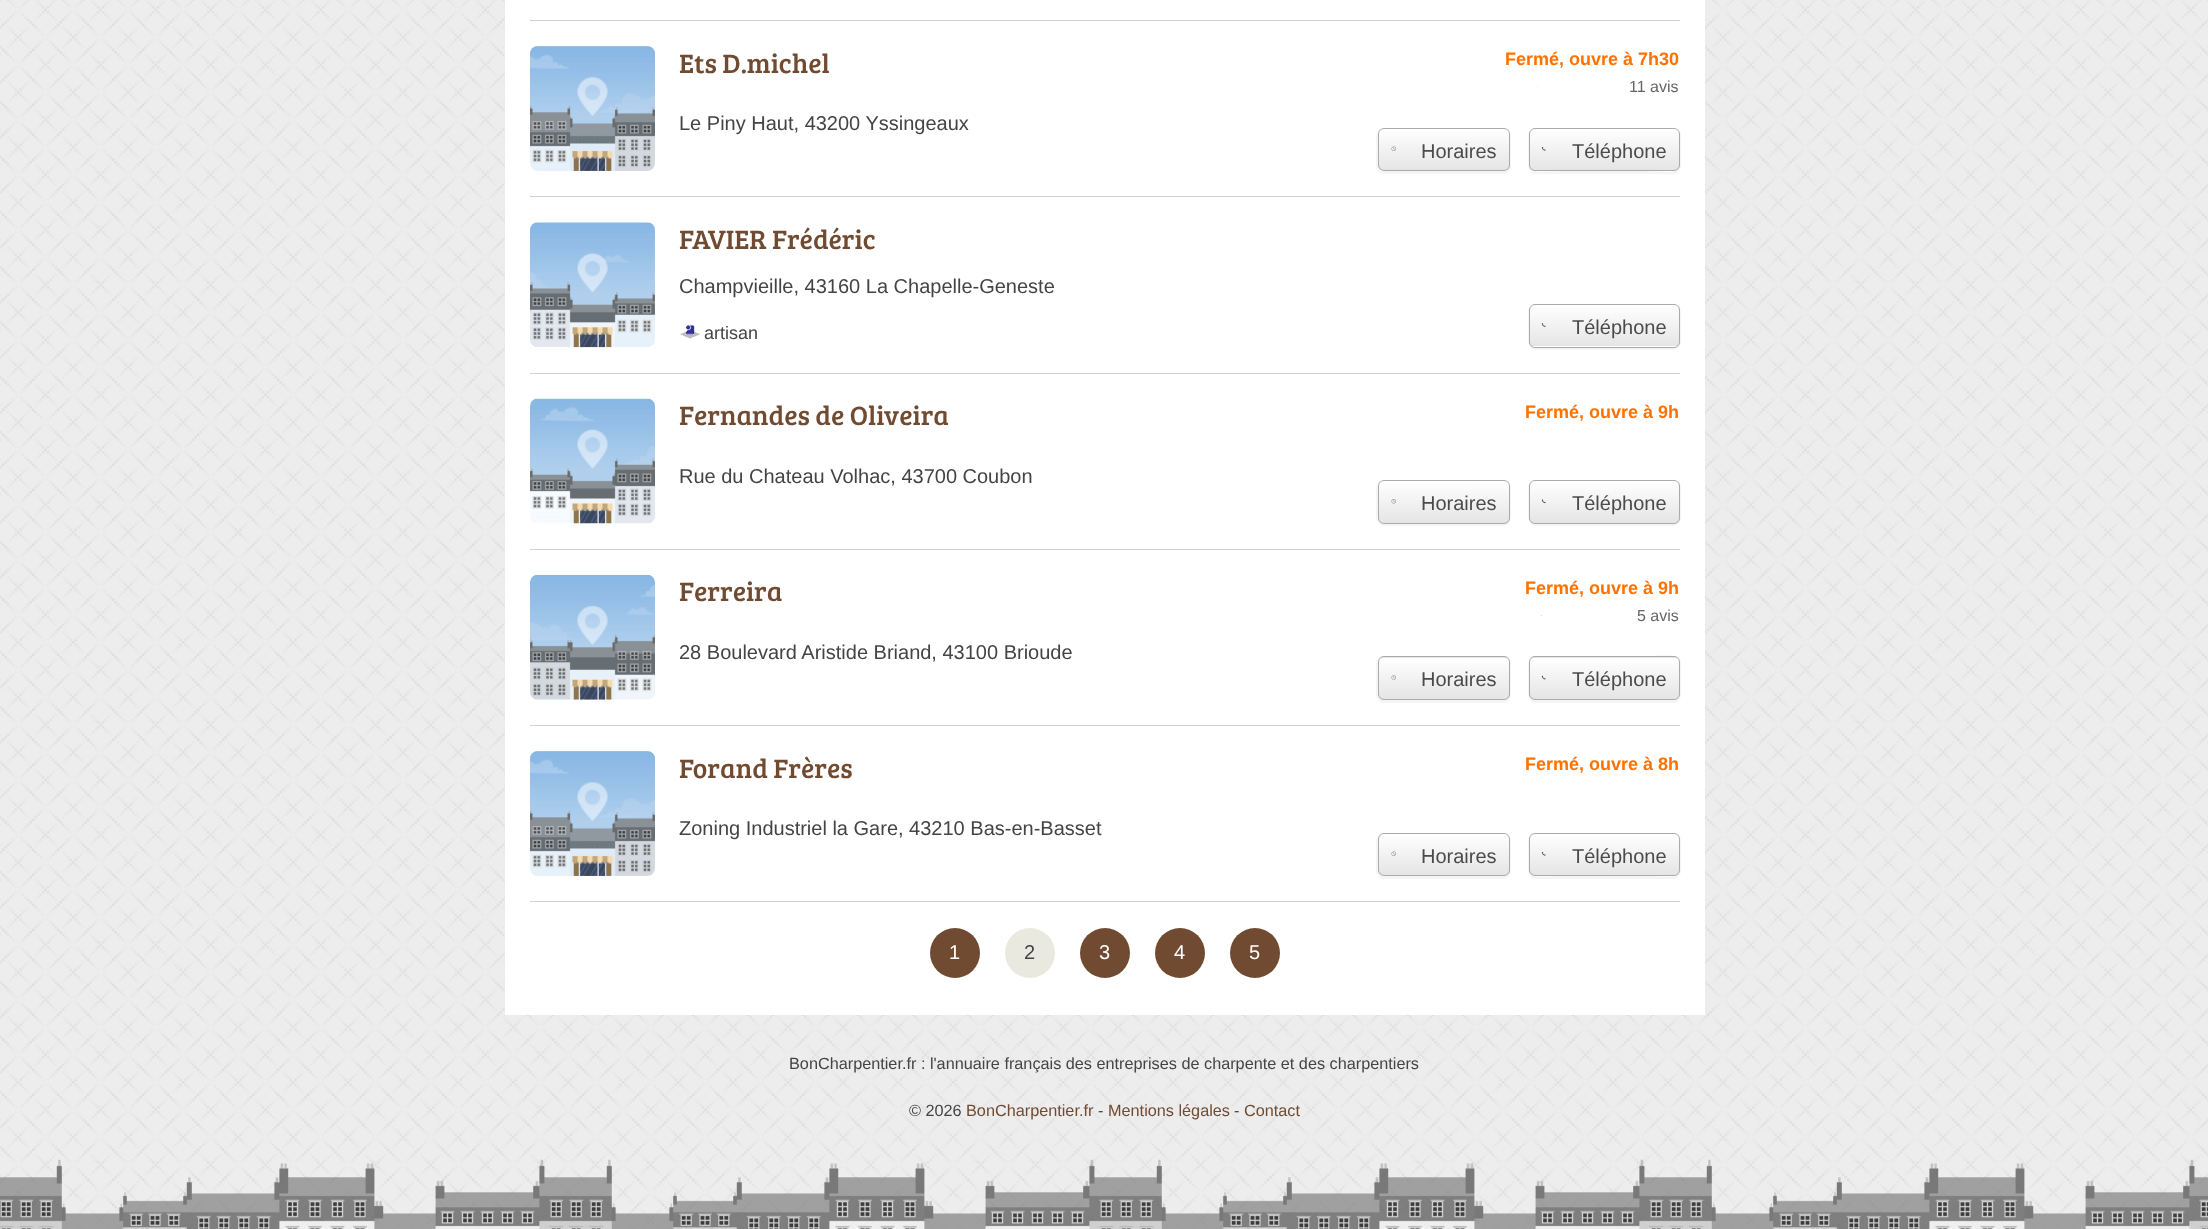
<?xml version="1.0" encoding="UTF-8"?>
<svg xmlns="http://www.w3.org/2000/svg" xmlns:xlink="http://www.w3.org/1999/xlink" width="2208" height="1229">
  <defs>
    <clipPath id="clip1"><rect x="1378" y="128" width="132" height="43" rx="6" /></clipPath>
    <linearGradient id="g1" gradientUnits="userSpaceOnUse" x1="1444" y1="129" x2="1444" y2="170"><stop offset="0" stop-color="#ffffff" /><stop offset="1" stop-color="#e5e5e5" /></linearGradient>
    <clipPath id="clip2"><rect x="1529" y="128" width="151" height="43" rx="6" /></clipPath>
    <linearGradient id="g2" gradientUnits="userSpaceOnUse" x1="1604" y1="129" x2="1604" y2="170"><stop offset="0" stop-color="#ffffff" /><stop offset="1" stop-color="#e5e5e5" /></linearGradient>
    <clipPath id="clip3"><rect x="1529" y="304" width="151" height="44" rx="6" /></clipPath>
    <linearGradient id="g3" gradientUnits="userSpaceOnUse" x1="1604" y1="305" x2="1604" y2="346"><stop offset="0" stop-color="#ffffff" /><stop offset="1" stop-color="#e5e5e5" /></linearGradient>
    <clipPath id="clip4"><rect x="1378" y="480" width="132" height="44" rx="6" /></clipPath>
    <linearGradient id="g4" gradientUnits="userSpaceOnUse" x1="1444" y1="481" x2="1444" y2="523"><stop offset="0" stop-color="#ffffff" /><stop offset="1" stop-color="#e5e5e5" /></linearGradient>
    <clipPath id="clip5"><rect x="1529" y="480" width="151" height="44" rx="6" /></clipPath>
    <linearGradient id="g5" gradientUnits="userSpaceOnUse" x1="1604" y1="481" x2="1604" y2="523"><stop offset="0" stop-color="#ffffff" /><stop offset="1" stop-color="#e5e5e5" /></linearGradient>
    <clipPath id="clip6"><rect x="1378" y="656" width="132" height="44" rx="6" /></clipPath>
    <linearGradient id="g6" gradientUnits="userSpaceOnUse" x1="1444" y1="616" x2="1444" y2="658"><stop offset="0" stop-color="#ffffff" /><stop offset="1" stop-color="#e5e5e5" /></linearGradient>
    <linearGradient id="g7" gradientUnits="userSpaceOnUse" x1="1444" y1="658" x2="1444" y2="699"><stop offset="0" stop-color="#ffffff" /><stop offset="1" stop-color="#e5e5e5" /></linearGradient>
    <clipPath id="clip7"><rect x="1529" y="656" width="151" height="44" rx="6" /></clipPath>
    <linearGradient id="g8" gradientUnits="userSpaceOnUse" x1="1604" y1="616" x2="1604" y2="658"><stop offset="0" stop-color="#ffffff" /><stop offset="1" stop-color="#e5e5e5" /></linearGradient>
    <linearGradient id="g9" gradientUnits="userSpaceOnUse" x1="1604" y1="658" x2="1604" y2="699"><stop offset="0" stop-color="#ffffff" /><stop offset="1" stop-color="#e5e5e5" /></linearGradient>
    <clipPath id="clip8"><rect x="1378" y="833" width="132" height="43" rx="6" /></clipPath>
    <linearGradient id="g10" gradientUnits="userSpaceOnUse" x1="1444" y1="834" x2="1444" y2="875"><stop offset="0" stop-color="#ffffff" /><stop offset="1" stop-color="#e5e5e5" /></linearGradient>
    <clipPath id="clip9"><rect x="1529" y="833" width="151" height="43" rx="6" /></clipPath>
    <linearGradient id="g11" gradientUnits="userSpaceOnUse" x1="1604" y1="834" x2="1604" y2="875"><stop offset="0" stop-color="#ffffff" /><stop offset="1" stop-color="#e5e5e5" /></linearGradient>
  </defs>
  <rect width="100%" height="100%" fill="#ffffff" />
  <image x="0" y="1160" width="2208" height="69" xlink:href="image1.png" />
  <image x="0" y="0" width="2208" height="1160" xlink:href="image2.png" />
  <rect x="505" width="1200" height="1015" fill="#ffffff" />
  <rect x="530" y="20" width="1150" height="1" fill="#d1d1d1" />
  <rect x="530" y="196" width="1150" height="1" fill="#d1d1d1" />
  <image x="530" y="46" width="125" height="125" xlink:href="image3.png" />
  <image x="1537" y="86" width="1" height="2" xlink:href="image4.png" />
  <path d="M 1378 130 c -1 2 -2 4 -2 6 v 30 c 0 4 4 8 8 8 h 119 c 4 0 8 -4 8 -8 v -30 c 0 -2 0 -3 -1 -4 v 33 c 0 4 -3 6 -6 6 h -120 c -4 0 -6 -2 -6 -6 v -31 z" fill="#f5f5f5" />
  <g clip-path="url(#clip1)">
    <rect x="1378" y="129" width="132" height="41" fill="url(#g1)" />
  </g>
  <rect x="1378.5" y="128.5" width="131" height="42" rx="5.5" fill="none" stroke="#aaaaaa" />
  <image x="1391" y="146" width="5" height="5" xlink:href="image5.png" />
  <path d="M 1529 132 l -1 4 v 30 c 0 4 4 8 8 8 h 137 c 4 0 8 -4 8 -8 v -30 c 0 -2 0 -3 -1 -4 v 34 c -2 9 -21 5 -29 5 h -93 c -8 0 -27 4 -29 -5 z" fill="#f5f5f5" />
  <g clip-path="url(#clip2)">
    <rect x="1529" y="129" width="151" height="41" fill="url(#g2)" />
  </g>
  <rect x="1529.5" y="128.5" width="150" height="42" rx="5.5" fill="none" stroke="#aaaaaa" />
  <image x="1541" y="146" width="5" height="5" xlink:href="image6.png" />
  <rect x="530" y="373" width="1150" height="1" fill="#d1d1d1" />
  <image x="530" y="222" width="125" height="126" xlink:href="image7.png" />
  <image x="680" y="325" width="20" height="14" xlink:href="image8.png" />
  <path d="M 1529 308 l -1 4 v 30 c 0 4 4 8 8 8 h 137 c 4 0 8 -4 8 -8 v -30 c 0 -2 -1 -3 -2 -5 l 1 3 v 32 c 0 3 -3 6 -6 6 h -139 c -4 0 -6 -3 -6 -6 z" fill="#f5f5f5" />
  <rect x="1529" y="304" width="151" height="44" rx="6" fill="#ffffff" />
  <g clip-path="url(#clip3)">
    <rect x="1529" y="305" width="151" height="41" fill="url(#g3)" />
  </g>
  <rect x="1529.5" y="304.5" width="150" height="43" rx="5.5" fill="none" stroke="#aaaaaa" />
  <image x="1541" y="323" width="5" height="4" xlink:href="image9.png" />
  <rect x="530" y="549" width="1150" height="1" fill="#d1d1d1" />
  <image x="530" y="398" width="125" height="126" xlink:href="image10.png" />
  <path d="M 1509 483 l 1 3 v 32 c 0 3 -3 6 -6 6 h -120 c -4 0 -6 -3 -6 -6 v -32 c 0 -2 1 -4 2 -5 c -2 1 -4 4 -4 7 v 30 c 0 4 4 8 8 8 h 119 c 4 0 8 -4 8 -8 v -30 c 0 -2 -1 -4 -2 -5 z" fill="#f5f5f5" />
  <g clip-path="url(#clip4)">
    <rect x="1378" y="481" width="132" height="42" fill="url(#g4)" />
  </g>
  <rect x="1378.5" y="480.5" width="131" height="43" rx="5.5" fill="none" stroke="#aaaaaa" />
  <image x="1391" y="499" width="5" height="5" xlink:href="image11.png" />
  <path d="M 1679 483 l 1 3 v 32 c 0 3 -3 6 -6 6 h -139 c -4 0 -6 -3 -6 -6 v -32 v -2 c -1 1 -1 3 -1 4 v 30 c 0 4 4 8 8 8 h 137 c 4 0 8 -4 8 -8 v -30 c 0 -2 -1 -4 -2 -5 z" fill="#f5f5f5" />
  <g clip-path="url(#clip5)">
    <rect x="1529" y="481" width="151" height="42" fill="url(#g5)" />
  </g>
  <rect x="1529.5" y="480.5" width="150" height="43" rx="5.5" fill="none" stroke="#aaaaaa" />
  <image x="1541" y="499" width="5" height="5" xlink:href="image12.png" />
  <rect x="530" y="725" width="1150" height="1" fill="#d1d1d1" />
  <image x="529" y="574" width="127" height="126" xlink:href="image13.png" />
  <rect x="1541" y="615" width="1" height="1" fill="#d6d6d6" />
  <path d="M 1384 656 c -4 0 -8 4 -8 8 v 31 c 0 4 4 8 8 8 h 119 c 4 0 8 -4 8 -8 v -31 c 0 -3 -1 -5 -3 -6 c 1 1 2 2 2 4 v 32 c 0 3 -3 6 -6 6 h -120 c -4 0 -6 -3 -6 -6 v -32 c 0 -3 2 -6 6 -6 h 120 l 2 1 l -3 -1 z" fill="#f5f5f5" />
  <g clip-path="url(#clip6)">
    <rect x="1378" y="656" width="132" height="2" fill="url(#g6)" />
    <rect x="1378" y="658" width="132" height="41" fill="url(#g7)" />
  </g>
  <rect x="1378.5" y="656.5" width="131" height="43" rx="5.5" fill="none" stroke="#aaaaaa" />
  <image x="1391" y="675" width="5" height="5" xlink:href="image14.png" />
  <path d="M 1536 656 h -2 h 117 c 8 0 17 -2 25 1 l -3 -1 z m 142 2 c 1 1 2 2 2 4 v 32 c 0 3 -3 6 -6 6 h -139 c -4 0 -6 -3 -6 -6 v -32 l 1 -3 c -1 2 -2 3 -2 5 v 31 c 0 4 4 8 8 8 h 137 c 4 0 8 -4 8 -8 v -31 c 0 -3 -1 -5 -3 -6 z" fill="#f5f5f5" fill-rule="evenodd" />
  <g clip-path="url(#clip7)">
    <rect x="1529" y="656" width="151" height="2" fill="url(#g8)" />
    <rect x="1529" y="658" width="151" height="41" fill="url(#g9)" />
  </g>
  <rect x="1529.5" y="656.5" width="150" height="43" rx="5.5" fill="none" stroke="#aaaaaa" />
  <image x="1541" y="675" width="5" height="5" xlink:href="image15.png" />
  <rect x="530" y="901" width="1150" height="1" fill="#d1d1d1" />
  <image x="530" y="751" width="125" height="125" xlink:href="image3.png" />
  <path d="M 1378 835 c -1 2 -2 4 -2 6 v 30 c 0 4 4 8 8 8 h 119 c 4 0 8 -4 8 -8 v -30 c 0 -2 0 -3 -1 -4 v 33 c 0 4 -3 6 -6 6 h -120 c -4 0 -6 -2 -6 -6 v -32 z" fill="#f5f5f5" />
  <g clip-path="url(#clip8)">
    <rect x="1378" y="834" width="132" height="41" fill="url(#g10)" />
  </g>
  <rect x="1378.5" y="833.5" width="131" height="42" rx="5.5" fill="none" stroke="#aaaaaa" />
  <image x="1391" y="851" width="5" height="5" xlink:href="image5.png" />
  <path d="M 1529 837 l -1 4 v 30 c 0 4 4 8 8 8 h 137 c 4 0 8 -4 8 -8 v -30 c 0 -2 0 -3 -1 -4 v 34 c -2 9 -21 5 -29 5 h -93 c -8 0 -27 4 -29 -5 z" fill="#f5f5f5" />
  <g clip-path="url(#clip9)">
    <rect x="1529" y="834" width="151" height="41" fill="url(#g11)" />
  </g>
  <rect x="1529.5" y="833.5" width="150" height="42" rx="5.5" fill="none" stroke="#aaaaaa" />
  <image x="1541" y="851" width="5" height="5" xlink:href="image6.png" />
  <circle cx="955" cy="953" r="25" fill="#714b31" />
  <circle cx="1030" cy="953" r="25" fill="#eae9df" />
  <circle cx="1105" cy="953" r="25" fill="#714b31" />
  <circle cx="1180" cy="953" r="25" fill="#714b31" />
  <circle cx="1255" cy="953" r="25" fill="#714b31" />
  <image x="0" y="1159" width="2208" height="70" xlink:href="image16.png" />
  <text x="679" y="73" style="font-family: Bree Serif; font-size: 27.5px; fill: #714b31">Ets D.michel</text>
  <text x="1505" y="65" style="font-family: Liberation Sans; font-size: 18px; font-weight: bold; fill: #ff7200">Fermé, ouvre à 7h30</text>
  <text x="1629" y="92" style="font-family: Liberation Sans; font-size: 16px; fill: #666666">11 avis</text>
  <text x="679" y="130" style="font-family: Liberation Sans; font-size: 20px; fill: #444444">Le Piny Haut, 43200 Yssingeaux</text>
  <text x="1421" y="158" style="font-family: Liberation Sans; font-size: 20px; fill: #4b4b4b">Horaires</text>
  <text x="1572" y="158" style="font-family: Liberation Sans; font-size: 20px; fill: #4b4b4b">Téléphone</text>
  <text x="679" y="249" style="font-family: Bree Serif; font-size: 27.5px; fill: #714b31">FAVIER Frédéric</text>
  <text x="679" y="293" style="font-family: Liberation Sans; font-size: 20px; fill: #444444">Champvieille, 43160 La Chapelle-Geneste</text>
  <text x="704" y="339" style="font-family: Liberation Sans; font-size: 18px; fill: #444444">artisan</text>
  <text x="1572" y="334" style="font-family: Liberation Sans; font-size: 20px; fill: #4b4b4b">Téléphone</text>
  <text x="679" y="425" style="font-family: Bree Serif; font-size: 27.5px; fill: #714b31">Fernandes de Oliveira</text>
  <text x="1525" y="418" style="font-family: Liberation Sans; font-size: 18px; font-weight: bold; fill: #ff7200">Fermé, ouvre à 9h</text>
  <text x="679" y="483" style="font-family: Liberation Sans; font-size: 20px; fill: #444444">Rue du Chateau Volhac, 43700 Coubon</text>
  <text x="1421" y="510" style="font-family: Liberation Sans; font-size: 20px; fill: #4b4b4b">Horaires</text>
  <text x="1572" y="510" style="font-family: Liberation Sans; font-size: 20px; fill: #4b4b4b">Téléphone</text>
  <text x="679" y="601" style="font-family: Bree Serif; font-size: 27.5px; fill: #714b31">Ferreira</text>
  <text x="1525" y="594" style="font-family: Liberation Sans; font-size: 18px; font-weight: bold; fill: #ff7200">Fermé, ouvre à 9h</text>
  <text x="1637" y="621" style="font-family: Liberation Sans; font-size: 16px; fill: #666666">5 avis</text>
  <text x="679" y="659" style="font-family: Liberation Sans; font-size: 20px; fill: #444444">28 Boulevard Aristide Briand, 43100 Brioude</text>
  <text x="1421" y="686" style="font-family: Liberation Sans; font-size: 20px; fill: #4b4b4b">Horaires</text>
  <text x="1572" y="686" style="font-family: Liberation Sans; font-size: 20px; fill: #4b4b4b">Téléphone</text>
  <text x="679" y="778" style="font-family: Bree Serif; font-size: 27.5px; fill: #714b31">Forand Frères</text>
  <text x="1525" y="770" style="font-family: Liberation Sans; font-size: 18px; font-weight: bold; fill: #ff7200">Fermé, ouvre à 8h</text>
  <text x="679" y="835" style="font-family: Liberation Sans; font-size: 20px; fill: #444444">Zoning Industriel la Gare, 43210 Bas-en-Basset</text>
  <text x="1421" y="863" style="font-family: Liberation Sans; font-size: 20px; fill: #4b4b4b">Horaires</text>
  <text x="1572" y="863" style="font-family: Liberation Sans; font-size: 20px; fill: #4b4b4b">Téléphone</text>
  <text x="949" y="959" style="font-family: Liberation Sans; font-size: 20px; fill: #ffffff">1</text>
  <text x="1024" y="959" style="font-family: Liberation Sans; font-size: 20px; fill: #444444">2</text>
  <text x="1099" y="959" style="font-family: Liberation Sans; font-size: 20px; fill: #ffffff">3</text>
  <text x="1174" y="959" style="font-family: Liberation Sans; font-size: 20px; fill: #ffffff">4</text>
  <text x="1249" y="959" style="font-family: Liberation Sans; font-size: 20px; fill: #ffffff">5</text>
  <text x="789" y="1069" style="font-family: Liberation Sans; font-size: 16.25px; fill: #444444">BonCharpentier.fr : l'annuaire français des entreprises de charpente et des charpentiers</text>
  <text x="909" y="1116" style="font-family: Liberation Sans; font-size: 16.25px; fill: #444444">© 2026</text>
  <text x="966" y="1116" style="font-family: Liberation Sans; font-size: 16.25px; fill: #714b31">BonCharpentier.fr</text>
  <text x="1098" y="1116" style="font-family: Liberation Sans; font-size: 16.25px; fill: #444444">-</text>
  <text x="1108" y="1116" style="font-family: Liberation Sans; font-size: 16.25px; fill: #714b31">Mentions légales</text>
  <text x="1234" y="1116" style="font-family: Liberation Sans; font-size: 16.25px; fill: #444444">-</text>
  <text x="1244" y="1116" style="font-family: Liberation Sans; font-size: 16.25px; fill: #714b31">Contact</text>
</svg>
